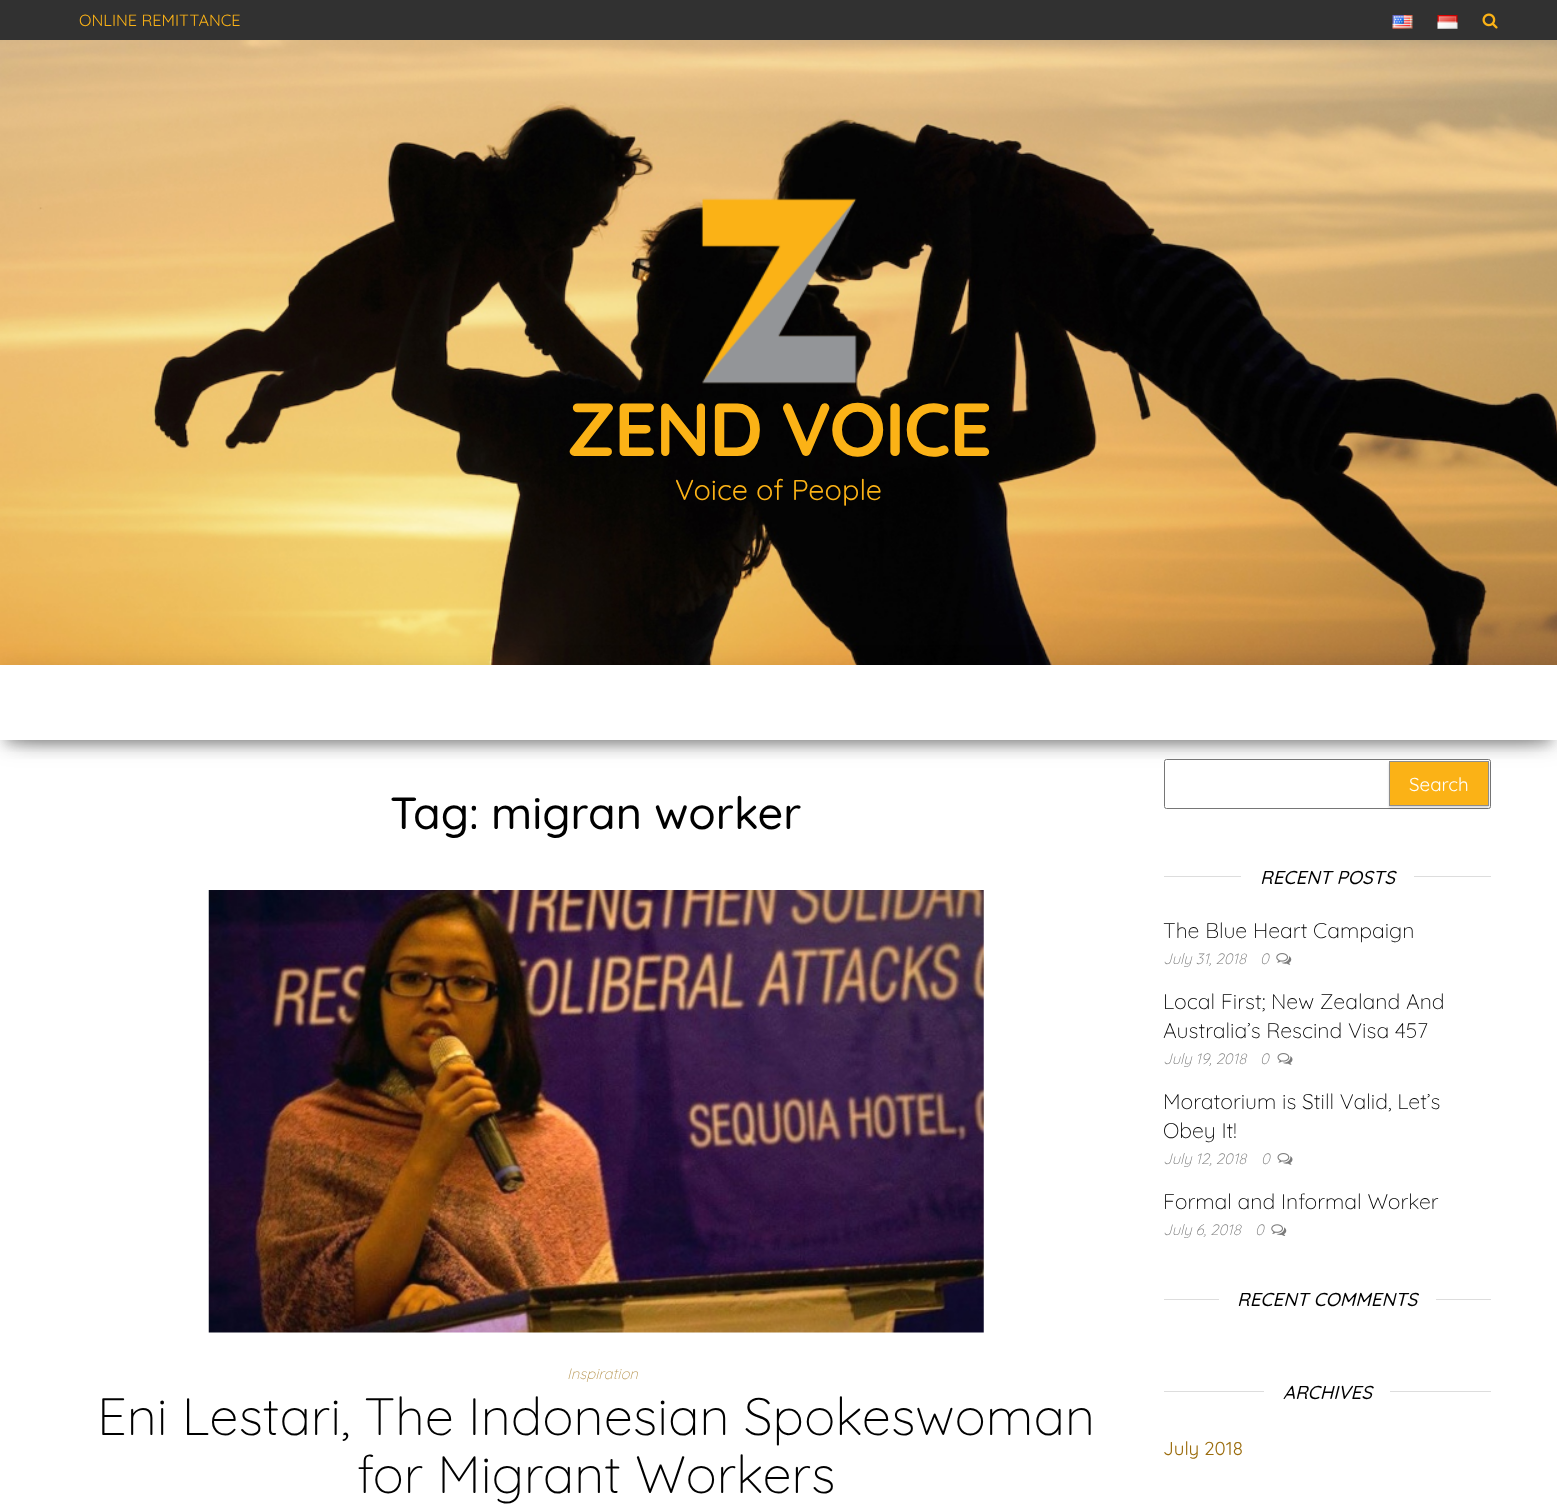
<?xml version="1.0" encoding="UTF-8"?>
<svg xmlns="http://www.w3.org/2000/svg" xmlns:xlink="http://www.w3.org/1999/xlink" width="1557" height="1504">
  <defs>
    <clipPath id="clip1"><rect x="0" y="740" width="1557" height="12" /></clipPath>
    <clipPath id="clip2"><path d="M 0 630 h 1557 v 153 h -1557 z m 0 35 h 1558 v 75 h -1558 z" clip-rule="evenodd" /></clipPath>
    <clipPath id="clip3"><rect x="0" y="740" width="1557" height="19" /></clipPath>
  </defs>
  <rect width="100%" height="100%" fill="#ffffff" />
  <rect width="1557" height="40" fill="#313131" />
  <image x="1392" y="15" width="21" height="14" xlink:href="image1.png" />
  <image x="1437" y="15" width="21" height="14" xlink:href="image2.png" />
  <image x="1482" y="13" width="16" height="16" xlink:href="image3.png" />
  <image x="0" y="40" width="1557" height="625" xlink:href="image4.png" />
  <image x="701" y="198" width="156" height="186" xlink:href="image5.png" />
  <g clip-path="url(#clip1)">
    <rect x="6" y="681" width="1545" height="63" fill="#000000" fill-opacity="0.2" filter="blur(6px)" />
  </g>
  <g clip-path="url(#clip2)">
    <rect y="669" width="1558" height="75" fill="#000000" fill-opacity="0.12" filter="blur(12.5px)" />
  </g>
  <g clip-path="url(#clip3)">
    <rect x="15" y="693" width="1528" height="45" fill="#000000" fill-opacity="0.42" filter="blur(12.5px)" />
  </g>
  <image x="208" y="890" width="776" height="443" xlink:href="image6.png" />
  <rect x="1164.5" y="759.5" width="326" height="49" rx="2" fill="#ffffff" stroke="#767676" />
  <rect x="1389" y="763" width="100" height="45" fill="#000000" fill-opacity="0.15" filter="blur(1px)" />
  <rect x="1389.5" y="761.5" width="99" height="44" fill="#fbb216" stroke="#8e8e8e" />
  <rect x="1164" y="876" width="327" height="1" fill="#dddddd" />
  <rect x="1241" y="876" width="173" height="1" fill="#ffffff" />
  <image x="1276" y="953" width="16" height="12" xlink:href="image7.png" />
  <image x="1277" y="1053" width="16" height="12" xlink:href="image8.png" />
  <image x="1277" y="1153" width="16" height="12" xlink:href="image8.png" />
  <image x="1271" y="1224" width="16" height="12" xlink:href="image9.png" />
  <rect x="1164" y="1299" width="327" height="1" fill="#dddddd" />
  <rect x="1219" y="1299" width="217" height="1" fill="#ffffff" />
  <rect x="1164" y="1391" width="327" height="1" fill="#dddddd" />
  <rect x="1264" y="1391" width="126" height="1" fill="#ffffff" />
  <text x="79" y="26" style="font-family: Quicksand; font-size: 16.25px; fill: #fbb216">ONLINE REMITTANCE</text>
  <text x="567" y="456" style="font-family: Quicksand; font-size: 75px; font-weight: bold; letter-spacing: -1.5px; fill: #fbb216">ZEND VOICE</text>
  <text x="675" y="500" style="font-family: Quicksand; font-size: 28.75px; fill: #fbb216">Voice of People</text>
  <text x="390" y="829" style="font-family: Quicksand; font-size: 45px; font-weight: 500; fill: #000000">Tag: migran worker</text>
  <text x="567" y="1379" style="font-family: Quicksand; font-size: 15px; font-weight: 300; font-style: italic; fill: #b99856">Inspiration</text>
  <text x="97" y="1435" style="font-family: Quicksand; font-size: 52.5px; font-weight: 300; fill: #000000">Eni Lestari, The Indonesian Spokeswoman</text>
  <text x="357" y="1493" style="font-family: Quicksand; font-size: 52.5px; font-weight: 300; fill: #000000">for Migrant Workers</text>
  <text x="1409" y="791" style="font-family: Quicksand; font-size: 18.75px; fill: #ffffff">Search</text>
  <text x="1260" y="884" style="font-family: Quicksand; font-size: 18.75px; font-weight: 500; font-style: italic; fill: #000000">RECENT POSTS</text>
  <text x="1163" y="938" style="font-family: Quicksand; font-size: 21.25px; font-weight: 300; fill: #000000">The Blue Heart Campaign</text>
  <text x="1163" y="964" style="font-family: Quicksand; font-size: 15px; font-weight: 300; font-style: italic; fill: #797979">July 31, 2018</text>
  <text x="1260" y="964" style="font-family: Quicksand; font-size: 15px; font-weight: 300; font-style: italic; fill: #797979">0</text>
  <text x="1163" y="1009" style="font-family: Quicksand; font-size: 21.25px; font-weight: 300; fill: #000000">Local First; New Zealand And</text>
  <text x="1163" y="1038" style="font-family: Quicksand; font-size: 21.25px; font-weight: 300; fill: #000000">Australia’s Rescind Visa 457</text>
  <text x="1163" y="1064" style="font-family: Quicksand; font-size: 15px; font-weight: 300; font-style: italic; fill: #797979">July 19, 2018</text>
  <text x="1260" y="1064" style="font-family: Quicksand; font-size: 15px; font-weight: 300; font-style: italic; fill: #797979">0</text>
  <text x="1163" y="1109" style="font-family: Quicksand; font-size: 21.25px; font-weight: 300; fill: #000000">Moratorium is Still Valid, Let’s</text>
  <text x="1163" y="1138" style="font-family: Quicksand; font-size: 21.25px; font-weight: 300; fill: #000000">Obey It!</text>
  <text x="1163" y="1164" style="font-family: Quicksand; font-size: 15px; font-weight: 300; font-style: italic; fill: #797979">July 12, 2018</text>
  <text x="1261" y="1164" style="font-family: Quicksand; font-size: 15px; font-weight: 300; font-style: italic; fill: #797979">0</text>
  <text x="1163" y="1209" style="font-family: Quicksand; font-size: 21.25px; font-weight: 300; fill: #000000">Formal and Informal Worker</text>
  <text x="1163" y="1235" style="font-family: Quicksand; font-size: 15px; font-weight: 300; font-style: italic; fill: #797979">July 6, 2018</text>
  <text x="1255" y="1235" style="font-family: Quicksand; font-size: 15px; font-weight: 300; font-style: italic; fill: #797979">0</text>
  <text x="1237" y="1306" style="font-family: Quicksand; font-size: 18.75px; font-weight: 500; font-style: italic; fill: #000000">RECENT COMMENTS</text>
  <text x="1283" y="1399" style="font-family: Quicksand; font-size: 18.75px; font-weight: 500; font-style: italic; fill: #000000">ARCHIVES</text>
  <text x="1163" y="1455" style="font-family: Quicksand; font-size: 18.75px; fill: #9b6c0d">July 2018</text>
</svg>
